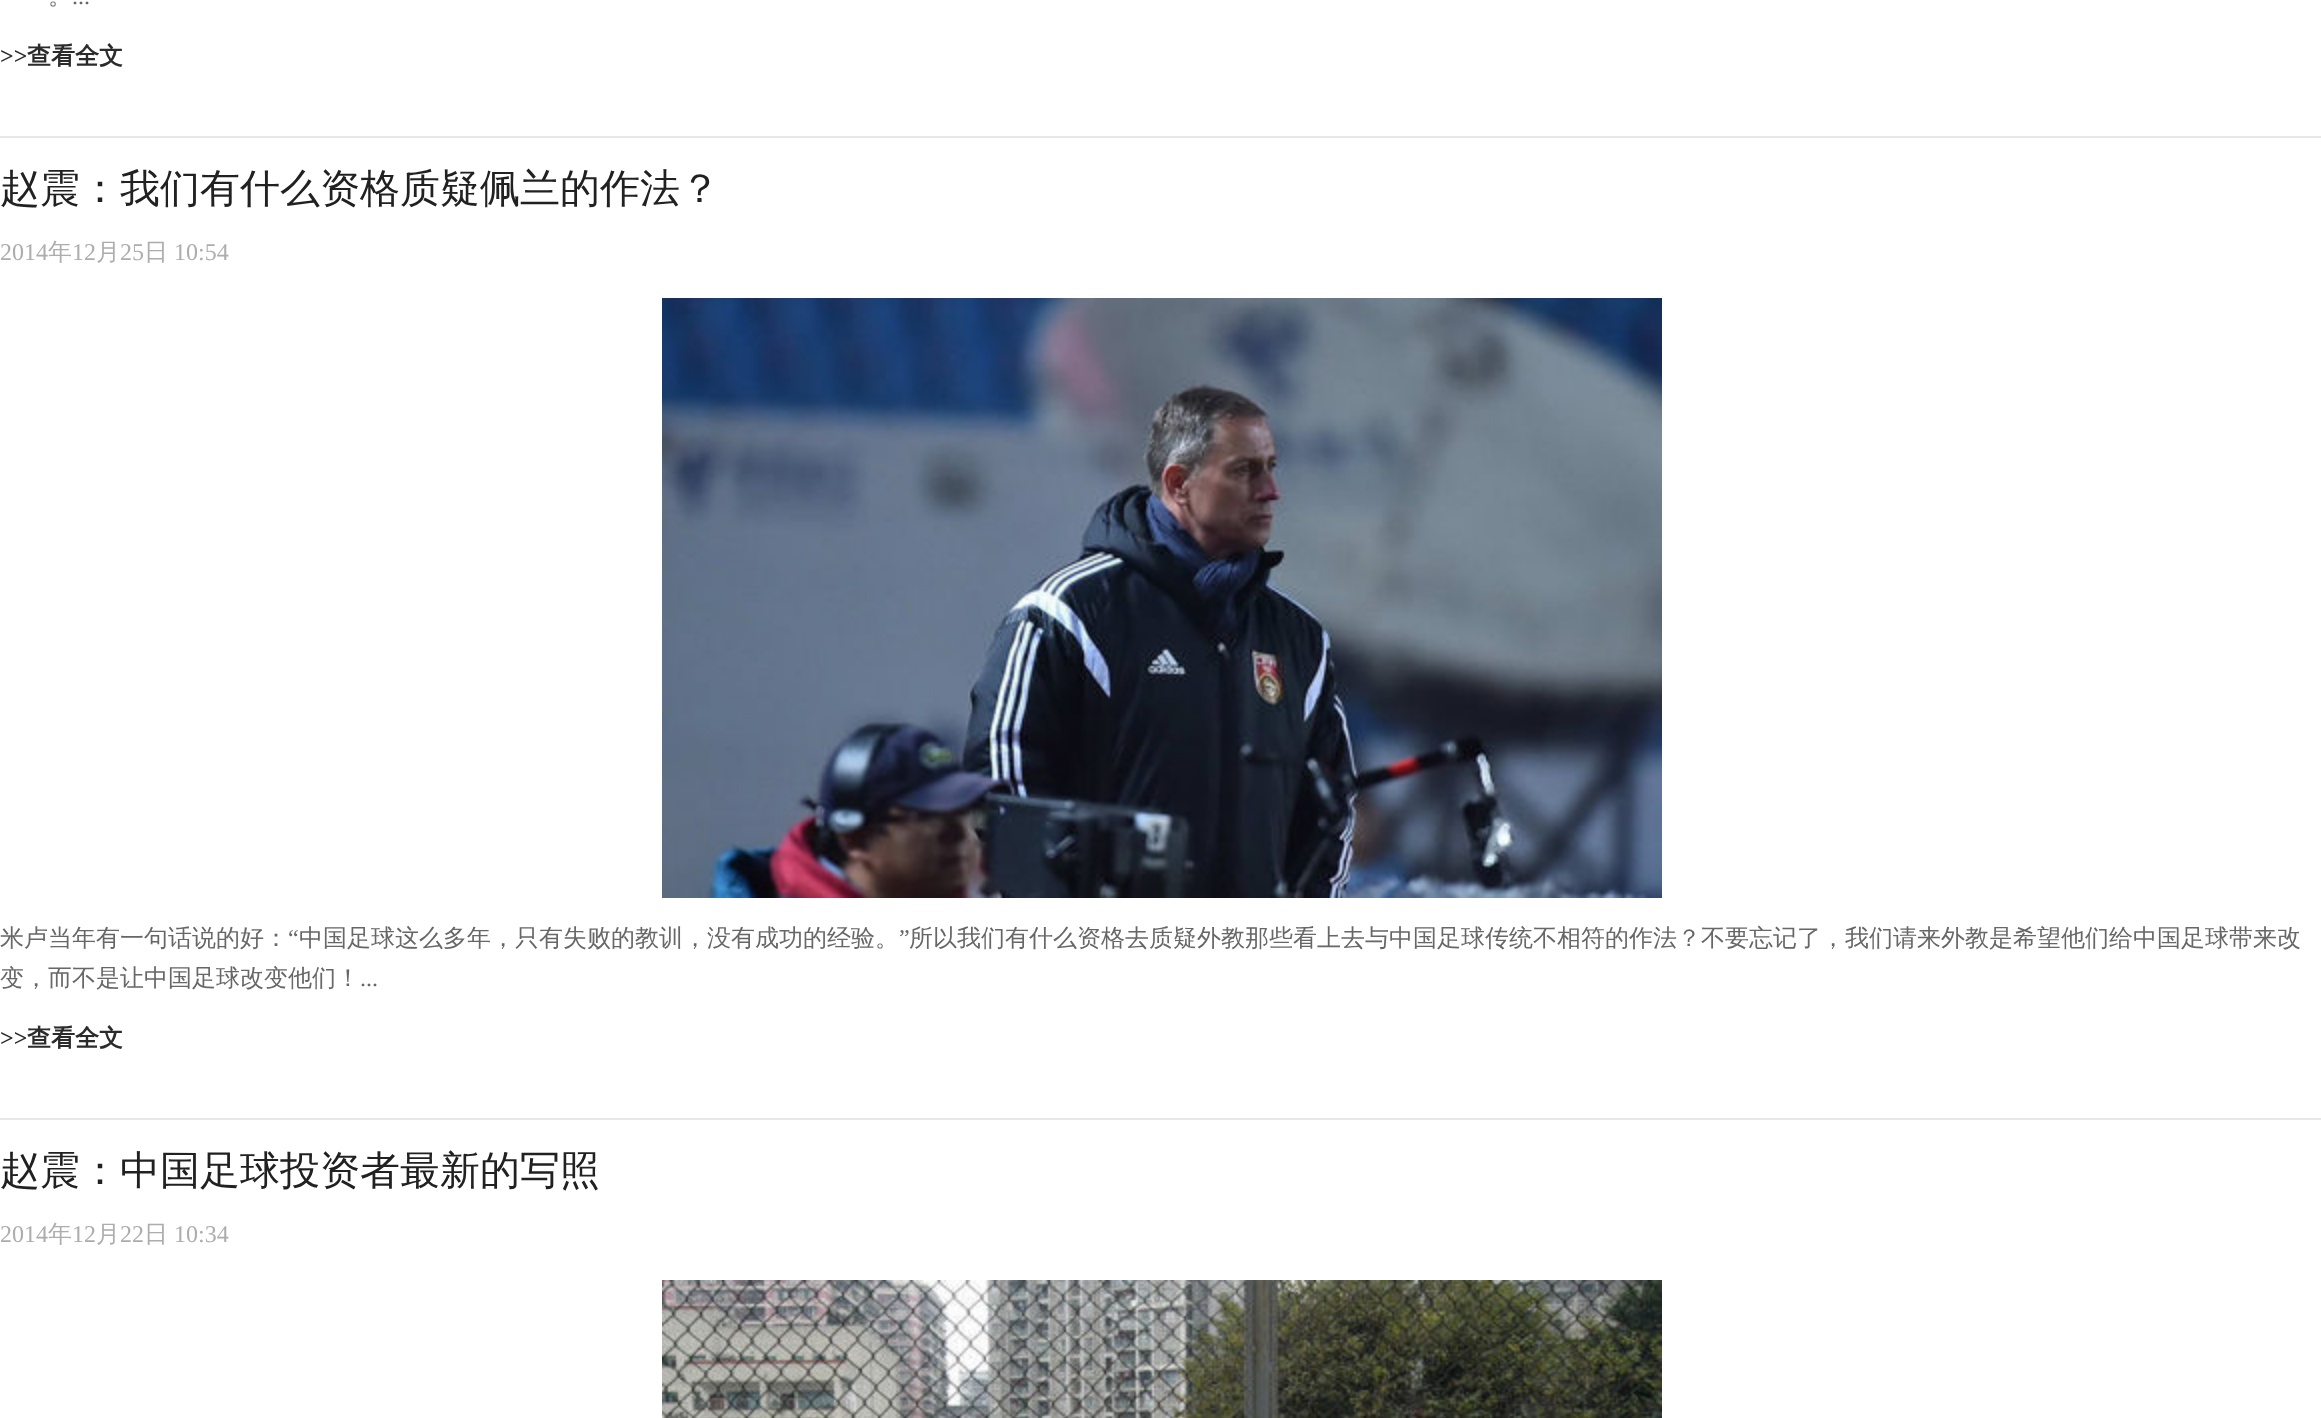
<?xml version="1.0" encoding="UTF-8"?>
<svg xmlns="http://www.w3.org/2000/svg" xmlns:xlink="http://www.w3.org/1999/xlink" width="2321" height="1418">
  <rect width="100%" height="100%" fill="#ffffff" />
  <rect y="136" width="2321" height="2" fill="#e7e7e7" />
  <rect y="1118" width="2321" height="2" fill="#e7e7e7" />
  <image x="662" y="298" width="1000" height="600" xlink:href="image1.png" />
  <image x="662" y="1280" width="1000" height="138" xlink:href="image2.png" />
  <text x="48" y="4" style="font-family: WenQuanYi Zen Hei; font-size: 24px; font-weight: 500; fill: #676767">。</text>
  <text x="72" y="4" style="font-family: Liberation Serif; font-size: 24px; fill: #676767">...</text>
  <text x="0" y="64" style="font-family: Liberation Serif; font-size: 24px; font-weight: bold; fill: #2b2b2b">&gt;&gt;</text>
  <text x="27" y="64" style="font-family: WenQuanYi Zen Hei; font-size: 24px; font-weight: bold; fill: #2b2b2b">查看全文</text>
  <text x="0" y="202" style="font-family: WenQuanYi Zen Hei; font-size: 40px; font-weight: 500; fill: #212121">赵震：我们有什么资格质疑佩兰的作法？</text>
  <text x="0" y="260" style="font-family: Liberation Serif; font-size: 24px; fill: #adadad">2014</text>
  <text x="48" y="260" style="font-family: WenQuanYi Zen Hei; font-size: 24px; font-weight: 500; fill: #adadad">年</text>
  <text x="72" y="260" style="font-family: Liberation Serif; font-size: 24px; fill: #adadad">12</text>
  <text x="96" y="260" style="font-family: WenQuanYi Zen Hei; font-size: 24px; font-weight: 500; fill: #adadad">月</text>
  <text x="120" y="260" style="font-family: Liberation Serif; font-size: 24px; fill: #adadad">25</text>
  <text x="144" y="260" style="font-family: WenQuanYi Zen Hei; font-size: 24px; font-weight: 500; fill: #adadad">日</text>
  <text x="174" y="260" style="font-family: Liberation Serif; font-size: 24px; fill: #adadad">10:54</text>
  <text x="0" y="946" style="font-family: WenQuanYi Zen Hei; font-size: 24px; font-weight: 500; fill: #676767">米卢当年有一句话说的好：</text>
  <text x="288" y="946" style="font-family: Liberation Serif; font-size: 24px; fill: #676767">“</text>
  <text x="299" y="946" style="font-family: WenQuanYi Zen Hei; font-size: 24px; font-weight: 500; fill: #676767">中国足球这么多年，只有失败的教训，没有成功的经验。</text>
  <text x="899" y="946" style="font-family: Liberation Serif; font-size: 24px; fill: #676767">”</text>
  <text x="909" y="946" style="font-family: WenQuanYi Zen Hei; font-size: 24px; font-weight: 500; fill: #676767">所以我们有什么资格去质疑外教那些看上去与中国足球传统不相符的作法？不要忘记了，我们请来外教是希望他们给中国足球带来改</text>
  <text x="0" y="986" style="font-family: WenQuanYi Zen Hei; font-size: 24px; font-weight: 500; fill: #676767">变，而不是让中国足球改变他们！</text>
  <text x="360" y="986" style="font-family: Liberation Serif; font-size: 24px; fill: #676767">...</text>
  <text x="0" y="1046" style="font-family: Liberation Serif; font-size: 24px; font-weight: bold; fill: #2b2b2b">&gt;&gt;</text>
  <text x="27" y="1046" style="font-family: WenQuanYi Zen Hei; font-size: 24px; font-weight: bold; fill: #2b2b2b">查看全文</text>
  <text x="0" y="1184" style="font-family: WenQuanYi Zen Hei; font-size: 40px; font-weight: 500; fill: #212121">赵震：中国足球投资者最新的写照</text>
  <text x="0" y="1242" style="font-family: Liberation Serif; font-size: 24px; fill: #adadad">2014</text>
  <text x="48" y="1242" style="font-family: WenQuanYi Zen Hei; font-size: 24px; font-weight: 500; fill: #adadad">年</text>
  <text x="72" y="1242" style="font-family: Liberation Serif; font-size: 24px; fill: #adadad">12</text>
  <text x="96" y="1242" style="font-family: WenQuanYi Zen Hei; font-size: 24px; font-weight: 500; fill: #adadad">月</text>
  <text x="120" y="1242" style="font-family: Liberation Serif; font-size: 24px; fill: #adadad">22</text>
  <text x="144" y="1242" style="font-family: WenQuanYi Zen Hei; font-size: 24px; font-weight: 500; fill: #adadad">日</text>
  <text x="174" y="1242" style="font-family: Liberation Serif; font-size: 24px; fill: #adadad">10:34</text>
</svg>
